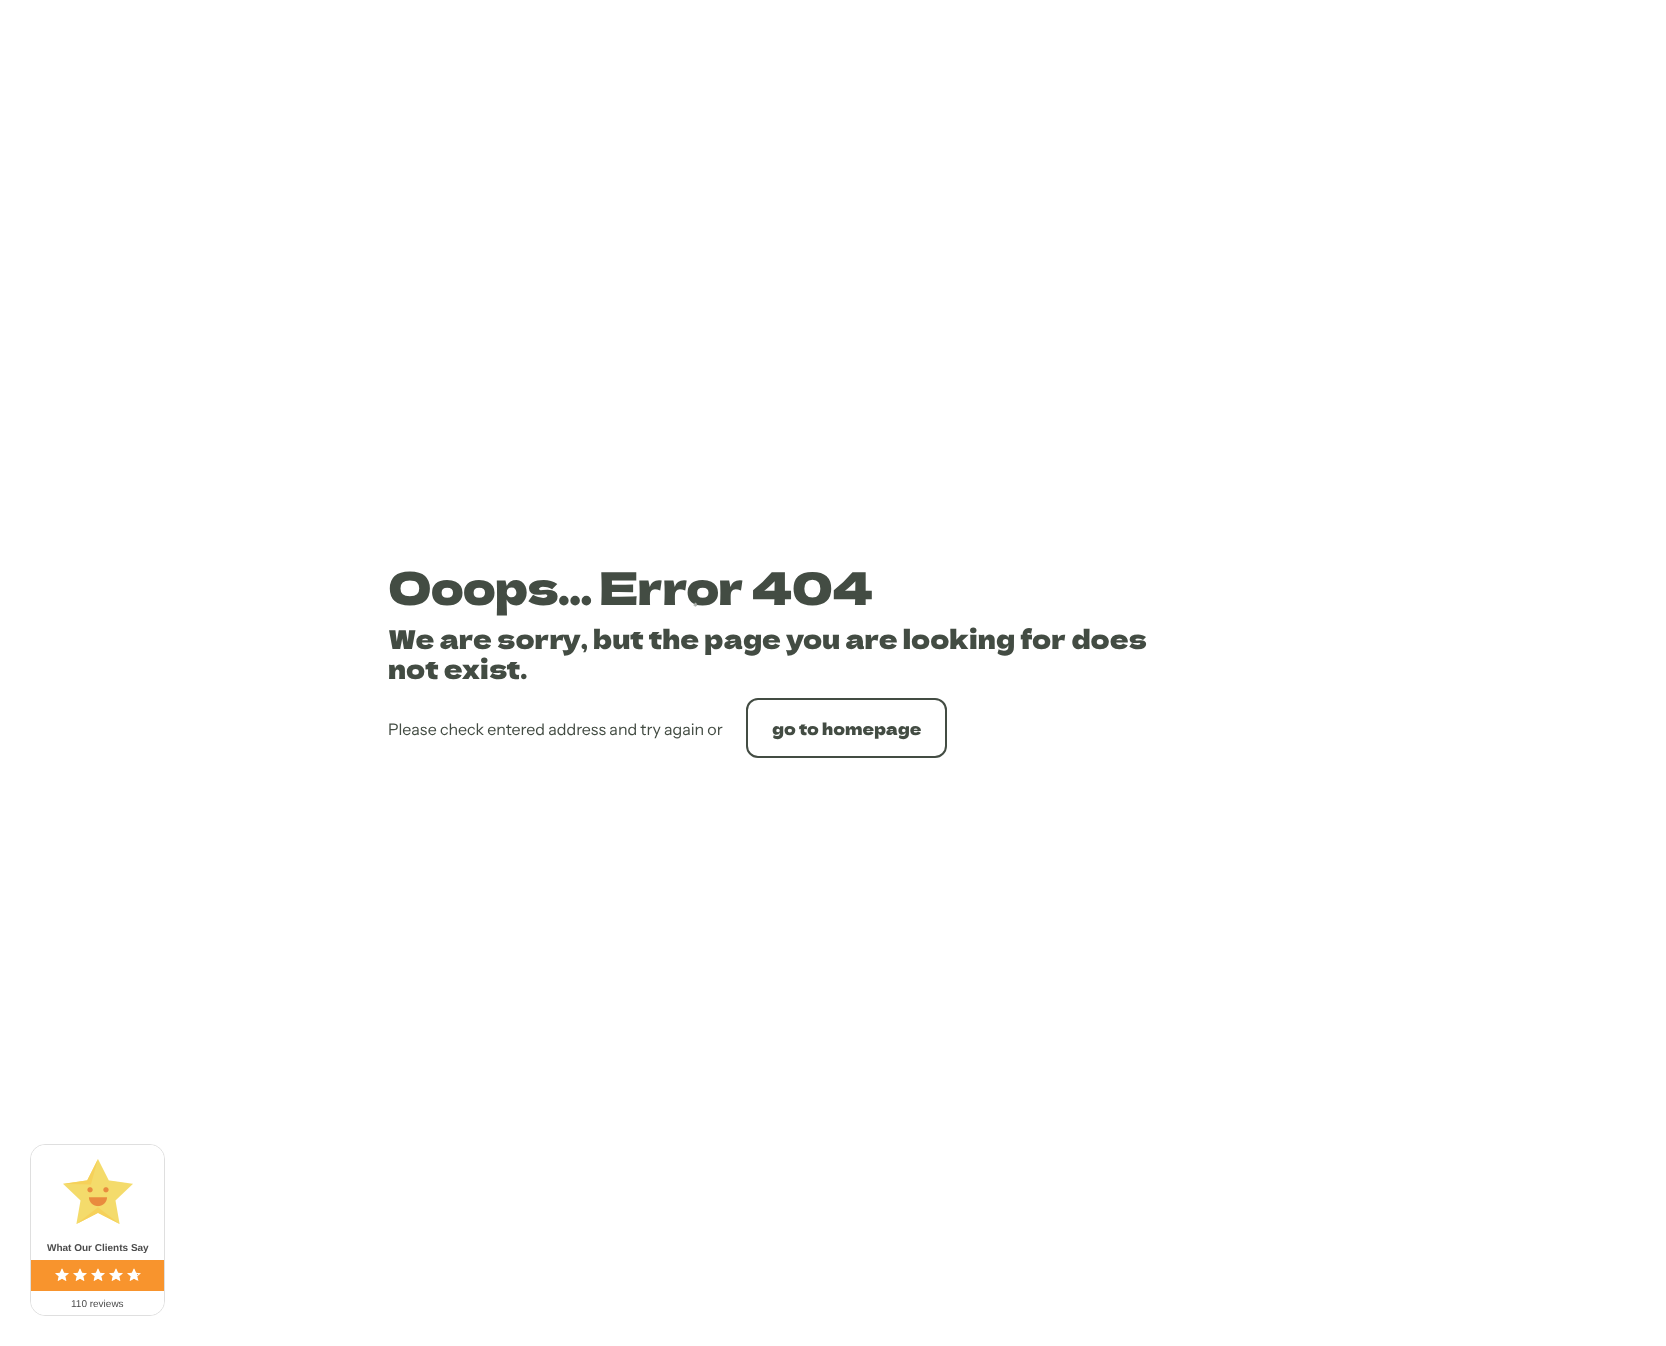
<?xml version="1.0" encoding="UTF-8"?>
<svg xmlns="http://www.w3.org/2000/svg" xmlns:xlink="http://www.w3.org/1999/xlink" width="1666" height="1346">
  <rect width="100%" height="100%" fill="#ffffff" />
  <rect x="747" y="699" width="199" height="58" rx="11" fill="none" stroke="#434c43" stroke-width="2" />
  <rect x="30.5" y="1144.5" width="134" height="171" rx="14.5" fill="none" stroke="#dfdfdf" />
  <path d="M 45 1145 h 105 c 7.5 0 14 6.5 14 14 v 101 h -133 v -101 c 0 -7.5 6.5 -14 14 -14 z" fill="#ffffff" />
  <rect x="31" y="1260" width="133" height="31" fill="#f8942d" />
  <path d="M 31 1291 h 133 v 10 c 0 7.5 -6.5 14 -14 14 h -105 c -7.5 0 -14 -6.5 -14 -14 z" fill="#ffffff" />
  <image x="63" y="1159" width="70" height="65" xlink:href="image1.png" />
  <image x="55" y="1268" width="14" height="13" xlink:href="image2.png" />
  <image x="55" y="1268" width="14" height="13" xlink:href="image3.png" />
  <image x="73" y="1268" width="14" height="13" xlink:href="image2.png" />
  <image x="73" y="1268" width="14" height="13" xlink:href="image3.png" />
  <image x="91" y="1268" width="14" height="13" xlink:href="image2.png" />
  <image x="91" y="1268" width="14" height="13" xlink:href="image3.png" />
  <image x="109" y="1268" width="14" height="13" xlink:href="image2.png" />
  <image x="109" y="1268" width="14" height="13" xlink:href="image3.png" />
  <image x="127" y="1268" width="14" height="13" xlink:href="image2.png" />
  <image x="127" y="1268" width="10" height="13" xlink:href="image4.png" />
  <text x="388" y="605" style="font-family: Dela Gothic One; font-size: 45px; letter-spacing: -1px; fill: #434c43">Ooops... Error 404</text>
  <text x="388" y="649" style="font-family: Dela Gothic One; font-size: 26px; fill: #434c43">We are sorry, but the page you are looking for does</text>
  <text x="388" y="679" style="font-family: Dela Gothic One; font-size: 26px; fill: #434c43">not exist.</text>
  <text x="388" y="735" style="font-family: Instrument Sans; font-size: 16px; fill: #434c43">Please check entered address and try again or</text>
  <text x="772" y="735" style="font-family: Dela Gothic One; font-size: 16px; fill: #434c43">go to homepage</text>
  <text x="693" y="611" style="font-family: Instrument Sans; font-size: 11px; font-weight: bold; fill: #adb1ad">*</text>
  <text x="47" y="1251" style="font-family: Liberation Sans; font-size: 10px; font-weight: bold; fill: #4c4c4c">What Our Clients Say</text>
  <text x="71" y="1307" style="font-family: Liberation Sans; font-size: 10px; fill: #4c4c4c">110 reviews</text>
</svg>
